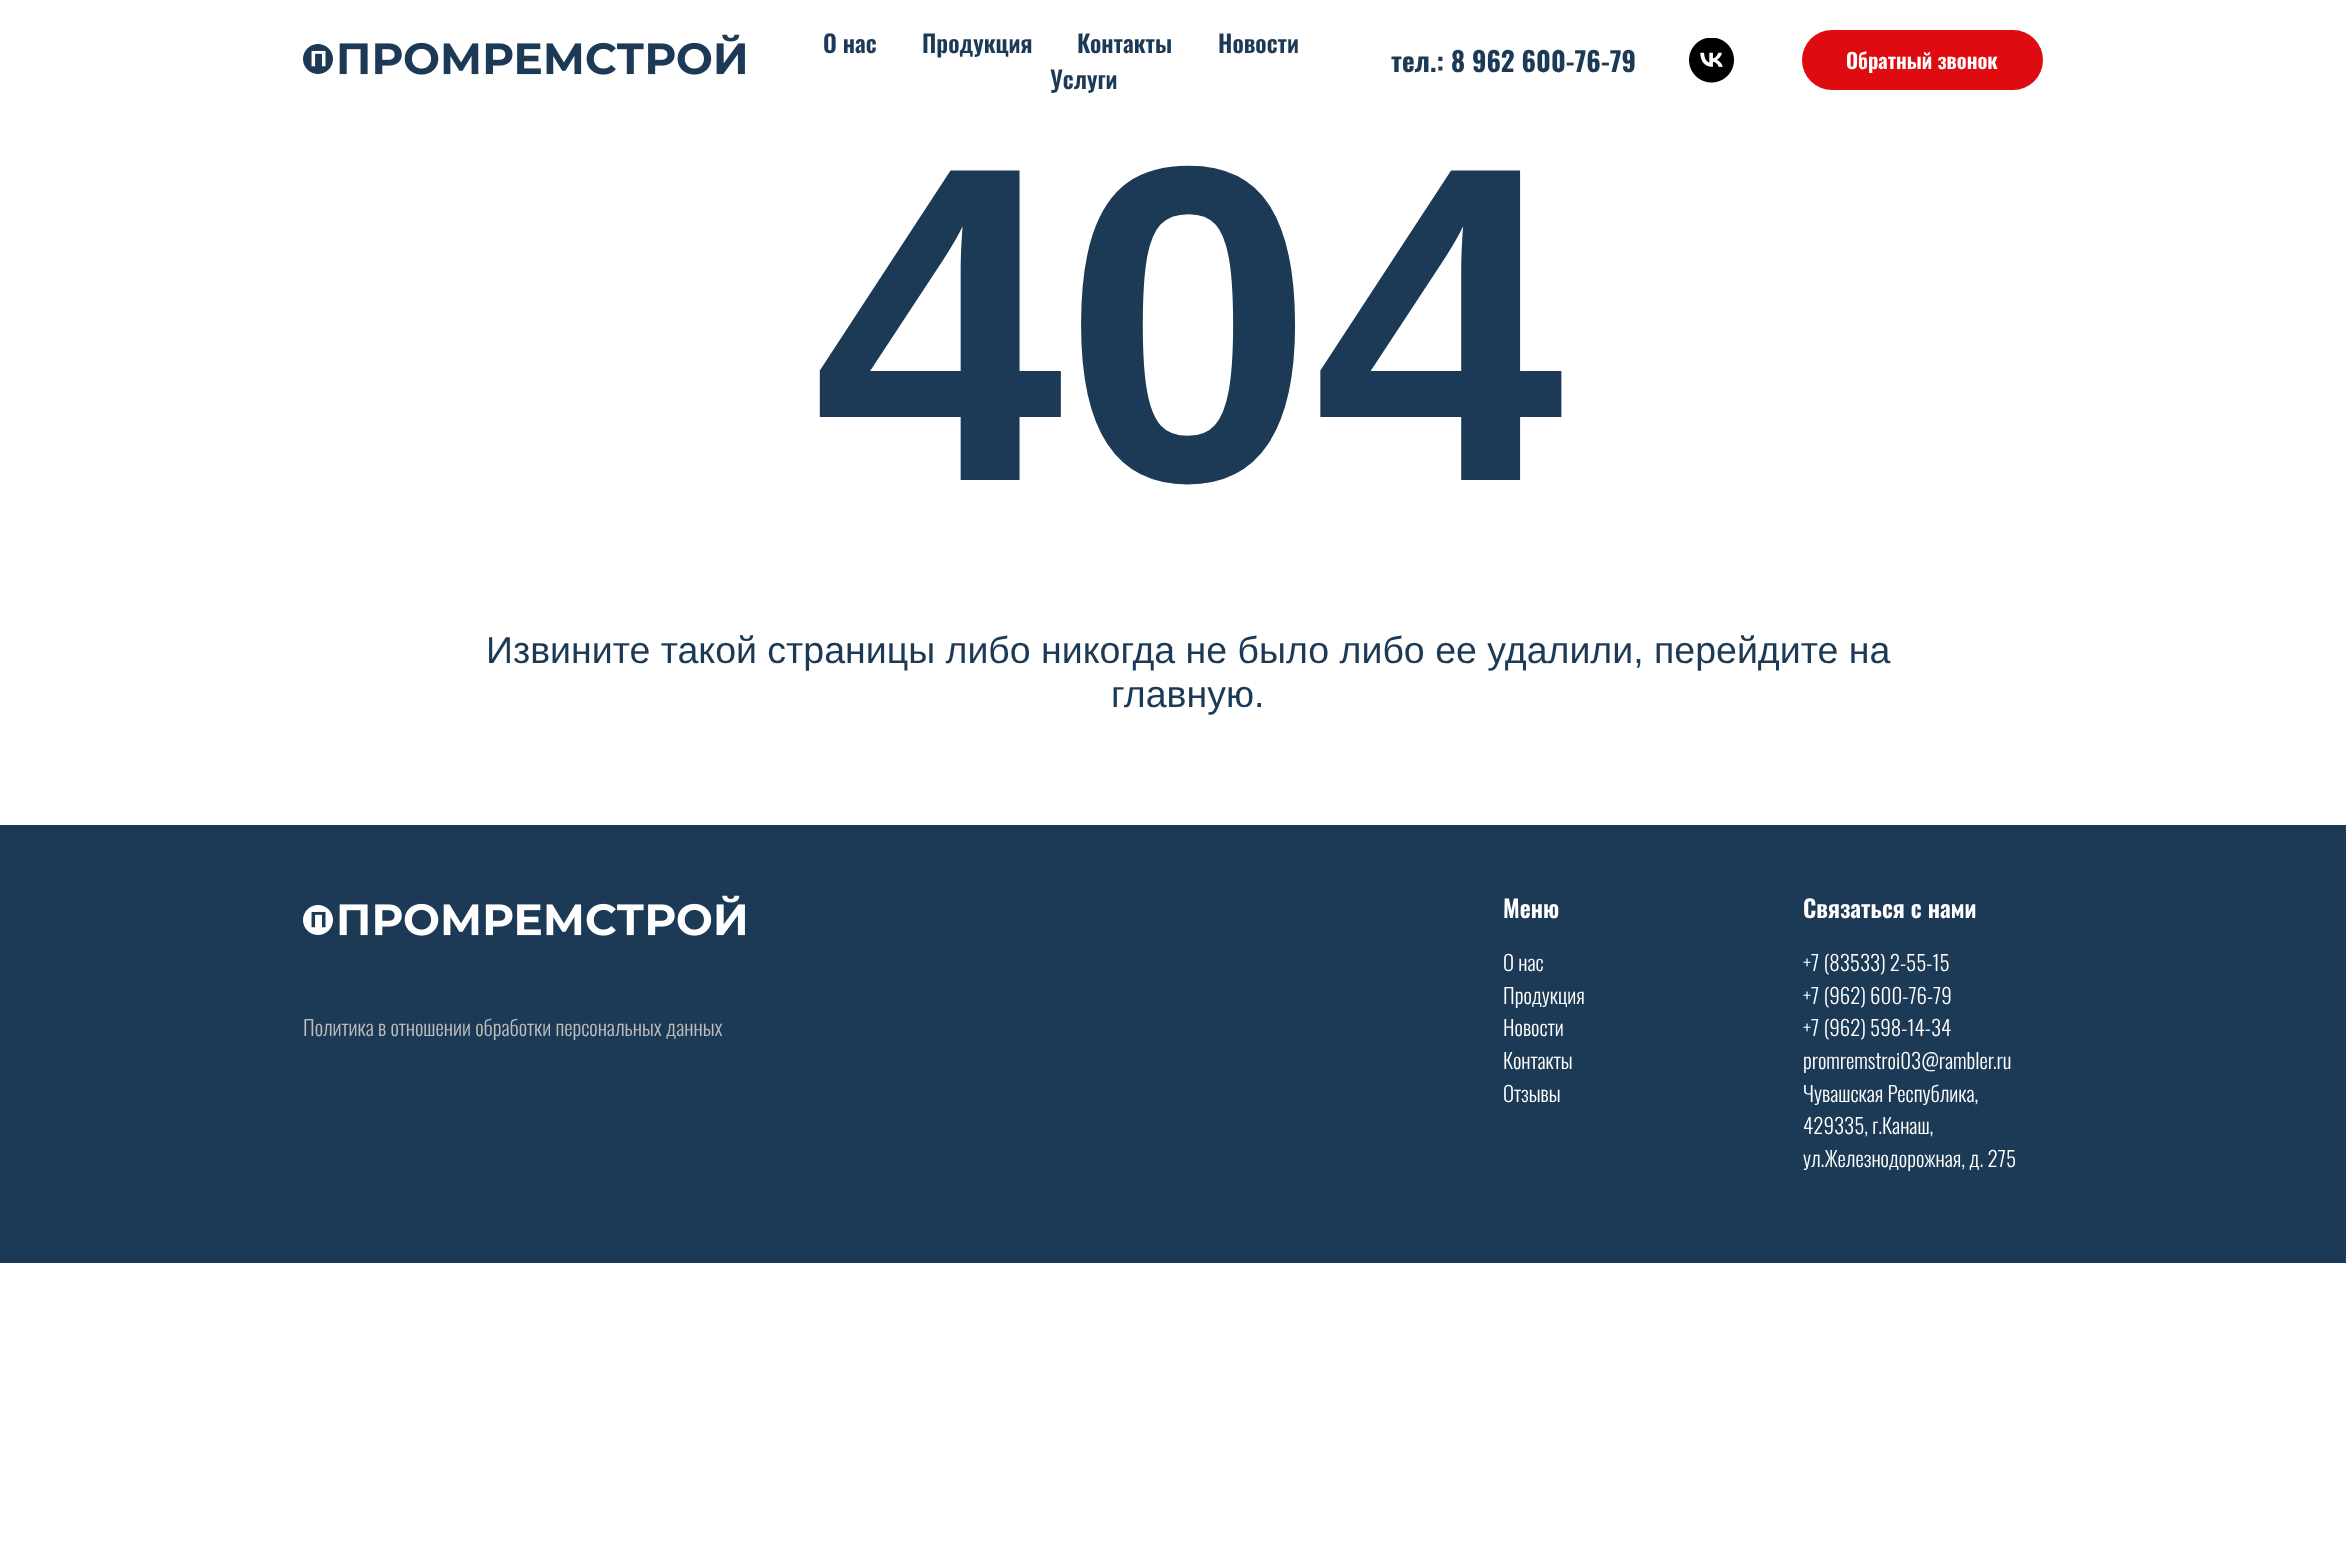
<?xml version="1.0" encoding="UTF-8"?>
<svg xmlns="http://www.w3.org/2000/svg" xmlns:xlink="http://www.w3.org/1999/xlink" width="2346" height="1560">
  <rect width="100%" height="100%" fill="#ffffff" />
  <image x="303" y="34" width="442" height="41" xlink:href="image1.png" />
  <image x="1689" y="38" width="45" height="45" xlink:href="image2.png" />
  <rect x="1802" y="30" width="241" height="60" rx="30" fill="#de0b11" />
  <rect y="825" width="2346" height="438" fill="#1c3a56" />
  <image x="303" y="895" width="442" height="41" xlink:href="image3.png" />
  <text x="823" y="53" style="font-family: Oswald; font-size: 24px; font-weight: 600; fill: #1c3a56">О нас</text>
  <text x="922" y="53" style="font-family: Oswald; font-size: 24px; font-weight: 600; fill: #1c3a56">Продукция</text>
  <text x="1077" y="53" style="font-family: Oswald; font-size: 24px; font-weight: 600; fill: #1c3a56">Контакты</text>
  <text x="1218" y="53" style="font-family: Oswald; font-size: 24px; font-weight: 600; fill: #1c3a56">Новости</text>
  <text x="1050" y="89" style="font-family: Oswald; font-size: 24px; font-weight: 600; fill: #1c3a56">Услуги</text>
  <text x="1391" y="72" style="font-family: Oswald; font-size: 27px; font-weight: bold; fill: #1c3a56">тел.: 8 962 600-76-79</text>
  <text x="1846" y="69" style="font-family: Oswald; font-size: 21px; font-weight: 600; fill: #ffffff">Обратный звонок</text>
  <text x="813" y="480" style="font-family: Liberation Sans; font-size: 450px; font-weight: bold; fill: #1c3a56">404</text>
  <text x="486" y="663" style="font-family: Liberation Sans; font-size: 37.5px; fill: #1c3a56">Извините такой страницы либо никогда не было либо ее удалили, перейдите на</text>
  <text x="1111" y="707" style="font-family: Liberation Sans; font-size: 37.5px; fill: #1c3a56">главную.</text>
  <text x="303" y="1036" style="font-family: Oswald; font-size: 21px; font-weight: 300; fill: #bdbdbd">Политика в отношении обработки персональных данных</text>
  <text x="1503" y="918" style="font-family: Oswald; font-size: 24px; font-weight: 600; fill: #ffffff">Меню</text>
  <text x="1503" y="971" style="font-family: Oswald; font-size: 21px; font-weight: 300; fill: #ffffff">О нас</text>
  <text x="1503" y="1004" style="font-family: Oswald; font-size: 21px; font-weight: 300; fill: #ffffff">Продукция</text>
  <text x="1503" y="1036" style="font-family: Oswald; font-size: 21px; font-weight: 300; fill: #ffffff">Новости</text>
  <text x="1503" y="1069" style="font-family: Oswald; font-size: 21px; font-weight: 300; fill: #ffffff">Контакты</text>
  <text x="1503" y="1102" style="font-family: Oswald; font-size: 21px; font-weight: 300; fill: #ffffff">Отзывы</text>
  <text x="1803" y="918" style="font-family: Oswald; font-size: 24px; font-weight: 600; fill: #ffffff">Связаться с нами</text>
  <text x="1803" y="971" style="font-family: Oswald; font-size: 21px; font-weight: 300; fill: #ffffff">+7 (83533) 2-55-15</text>
  <text x="1803" y="1004" style="font-family: Oswald; font-size: 21px; font-weight: 300; fill: #ffffff">+7 (962) 600-76-79</text>
  <text x="1803" y="1036" style="font-family: Oswald; font-size: 21px; font-weight: 300; fill: #ffffff">+7 (962) 598-14-34</text>
  <text x="1803" y="1069" style="font-family: Oswald; font-size: 21px; font-weight: 300; fill: #ffffff">promremstroi03@rambler.ru</text>
  <text x="1803" y="1102" style="font-family: Oswald; font-size: 21px; font-weight: 300; fill: #ffffff">Чувашская Республика,</text>
  <text x="1803" y="1134" style="font-family: Oswald; font-size: 21px; font-weight: 300; fill: #ffffff">429335, г.Канаш,</text>
  <text x="1803" y="1167" style="font-family: Oswald; font-size: 21px; font-weight: 300; fill: #ffffff">ул.Железнодорожная, д. 275</text>
</svg>
